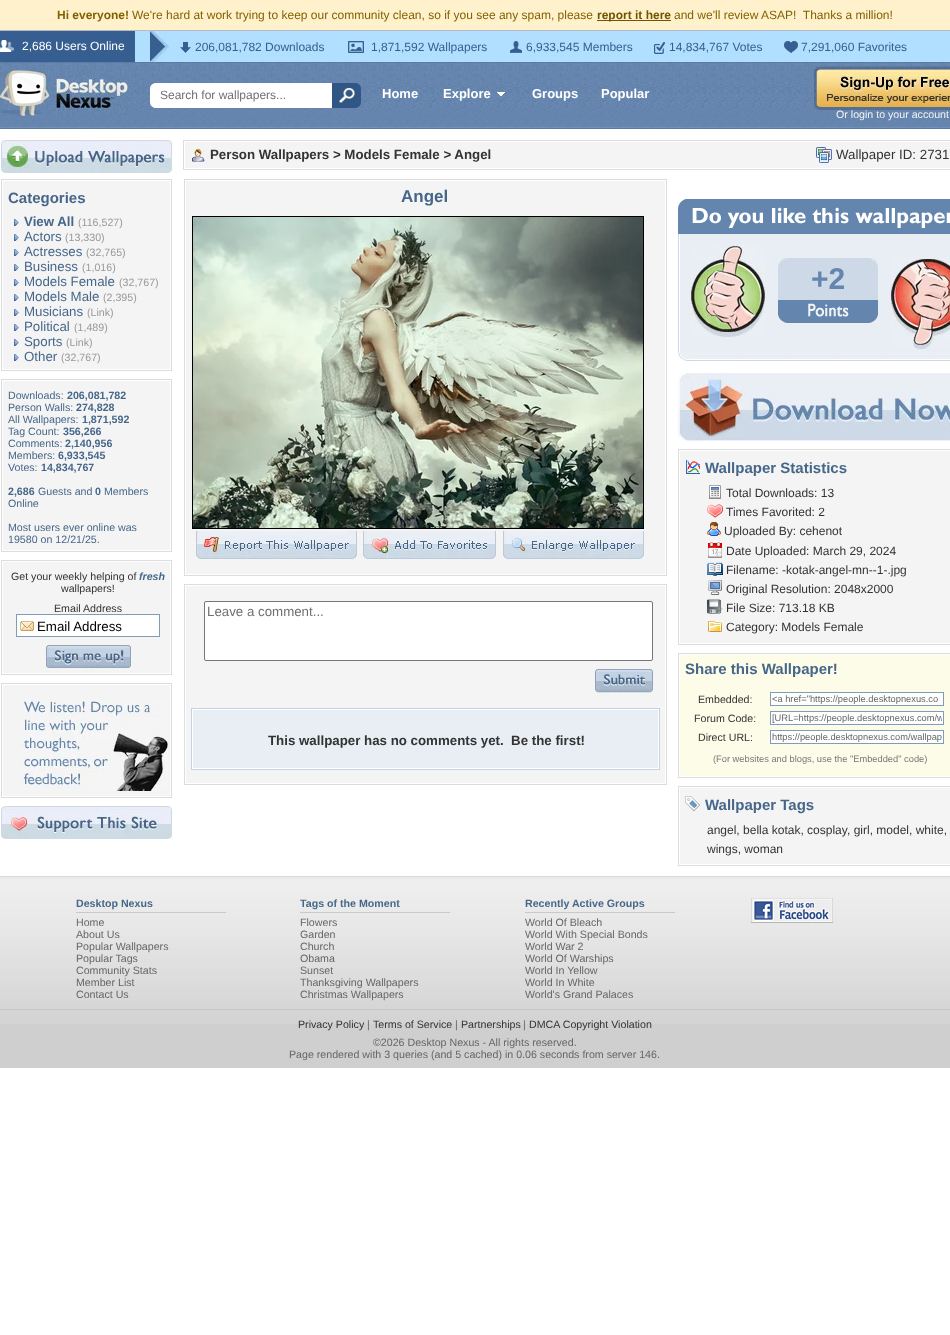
<?xml version="1.0" encoding="UTF-8"?>
<svg xmlns="http://www.w3.org/2000/svg" xmlns:xlink="http://www.w3.org/1999/xlink" width="950" height="1335">
  <defs>
    <clipPath id="clip1"><rect x="772" y="713" width="170" height="10" /></clipPath>
  </defs>
  <rect width="100%" height="100%" fill="#ffffff" />
  <rect width="950" height="30" fill="#fff1cb" />
  <rect x="597" y="20" width="74" height="1" fill="#705500" />
  <rect x="135" y="31" width="815" height="31" fill="#b1dfff" />
  <rect y="30" width="950" height="1" fill="#b6bac0" />
  <rect y="31" width="135" height="31" fill="#375e90" />
  <image x="0" y="40" width="14" height="12" xlink:href="image1.png" />
  <image x="150" y="31" width="19" height="31" xlink:href="image2.png" />
  <image x="180" y="42" width="11" height="11" xlink:href="image3.png" />
  <image x="348" y="41" width="16" height="12" xlink:href="image4.png" />
  <image x="510" y="41" width="12" height="12" xlink:href="image5.png" />
  <image x="654" y="42" width="11" height="12" xlink:href="image6.png" />
  <image x="784" y="41" width="14" height="12" xlink:href="image7.png" />
  <image x="0" y="62" width="950" height="67" xlink:href="image8.png" />
  <image x="0" y="70" width="128" height="46" xlink:href="image9.png" />
  <path d="M 156 83 h 192 v 25 h -192 c -3.5 0 -6 -2.5 -6 -6 v -13 c 0 -3.5 2.5 -6 6 -6 z" fill="#ffffff" />
  <path d="M 332 83 h 23 c 3.5 0 6 2.5 6 6 v 13 c 0 3.5 -2.5 6 -6 6 h -23 z" fill="#305686" />
  <image x="339" y="88" width="16" height="15" xlink:href="image10.png" />
  <image x="496" y="92" width="10" height="5" xlink:href="image11.png" />
  <image x="814" y="66" width="136" height="44" xlink:href="image12.png" />
  <image x="1" y="140" width="171" height="33" xlink:href="image13.png" />
  <rect x="1.5" y="179.5" width="170" height="191" fill="none" stroke="#dcdcdc" />
  <rect x="3" y="181" width="167" height="188" fill="#f4f4f4" />
  <image x="14" y="219" width="5" height="7" xlink:href="image14.png" />
  <image x="14" y="234" width="5" height="7" xlink:href="image14.png" />
  <image x="14" y="249" width="5" height="7" xlink:href="image14.png" />
  <image x="14" y="264" width="5" height="7" xlink:href="image14.png" />
  <image x="14" y="279" width="5" height="7" xlink:href="image14.png" />
  <image x="14" y="294" width="5" height="7" xlink:href="image14.png" />
  <image x="14" y="309" width="5" height="7" xlink:href="image14.png" />
  <image x="14" y="324" width="5" height="7" xlink:href="image14.png" />
  <image x="14" y="339" width="5" height="7" xlink:href="image14.png" />
  <image x="14" y="354" width="5" height="7" xlink:href="image14.png" />
  <rect x="1.5" y="379.5" width="170" height="172" fill="none" stroke="#dcdcdc" />
  <rect x="3" y="381" width="167" height="169" fill="#f4f4f4" />
  <rect x="1.5" y="560.5" width="170" height="114" fill="none" stroke="#dcdcdc" />
  <rect x="3" y="562" width="167" height="111" fill="#f4f4f4" />
  <rect x="17" y="615" width="142" height="21" fill="#ffffff" />
  <image x="17" y="621" width="17" height="10" xlink:href="image15.png" />
  <rect x="16.5" y="614.5" width="143" height="22" fill="none" stroke="#7f9db9" />
  <image x="46" y="645" width="85" height="23" xlink:href="image16.png" />
  <rect x="1.5" y="683.5" width="170" height="114" fill="none" stroke="#dcdcdc" />
  <rect x="3" y="685" width="167" height="111" fill="#f4f4f4" />
  <image x="21" y="700" width="147" height="91" xlink:href="image17.png" />
  <image x="1" y="806" width="171" height="33" xlink:href="image18.png" />
  <rect x="183.5" y="140.5" width="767" height="29" fill="none" stroke="#dcdcdc" />
  <rect x="185" y="142" width="765" height="26" fill="#f4f4f4" />
  <image x="190" y="147" width="16" height="16" xlink:href="image19.png" />
  <image x="816" y="147" width="16" height="16" xlink:href="image20.png" />
  <rect x="184.5" y="179.5" width="482" height="396" fill="none" stroke="#dcdcdc" />
  <rect x="186" y="181" width="479" height="393" fill="#f4f4f4" />
  <rect x="192.5" y="216.5" width="451" height="312" fill="none" stroke="#000000" />
  <image x="193" y="217" width="450" height="311" xlink:href="image21.png" />
  <image x="196" y="531" width="161" height="28" xlink:href="image22.png" />
  <image x="363" y="531" width="133" height="28" xlink:href="image23.png" />
  <image x="503" y="531" width="141" height="28" xlink:href="image24.png" />
  <rect x="184.5" y="584.5" width="482" height="200" fill="none" stroke="#dcdcdc" />
  <rect x="186" y="586" width="479" height="197" fill="#f4f4f4" />
  <rect x="204.5" y="601.5" width="448" height="59" rx="1.5" fill="#ffffff" stroke="#767676" />
  <image x="595" y="669" width="58" height="24" xlink:href="image25.png" />
  <rect x="191.5" y="708.5" width="468" height="61" fill="#ffffff" stroke="#c5d2e2" />
  <rect x="193" y="710" width="465" height="58" fill="#e9eef4" />
  <image x="678" y="199" width="272" height="35" xlink:href="image26.png" />
  <rect x="680" y="234" width="270" height="118" fill="#e9eef4" />
  <image x="678" y="234" width="2" height="118" xlink:href="image27.png" />
  <image x="691" y="245" width="74" height="92" xlink:href="image28.png" />
  <rect x="778" y="266" width="100" height="34" fill="#cdd9e7" />
  <image x="778" y="258" width="100" height="8" xlink:href="image29.png" />
  <image x="778" y="300" width="100" height="23" xlink:href="image30.png" />
  <image x="891" y="257" width="59" height="92" xlink:href="image31.png" />
  <image x="678" y="352" width="272" height="9" xlink:href="image32.png" />
  <image x="678" y="373" width="272" height="68" xlink:href="image33.png" />
  <rect x="678.5" y="449.5" width="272" height="195" fill="none" stroke="#dcdcdc" />
  <rect x="680" y="451" width="270" height="192" fill="#f4f4f4" />
  <image x="686" y="460" width="14" height="14" xlink:href="image34.png" />
  <image x="709" y="485" width="12" height="14" xlink:href="image35.png" />
  <image x="707" y="504" width="16" height="14" xlink:href="image36.png" />
  <image x="707" y="522" width="14" height="14" xlink:href="image37.png" />
  <image x="708" y="542" width="14" height="16" xlink:href="image38.png" />
  <image x="707" y="562" width="16" height="14" xlink:href="image39.png" />
  <image x="708" y="580" width="14" height="15" xlink:href="image40.png" />
  <image x="707" y="599" width="16" height="15" xlink:href="image41.png" />
  <image x="708" y="621" width="14" height="11" xlink:href="image42.png" />
  <rect x="678.5" y="653.5" width="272" height="124" fill="none" stroke="#dcdcdc" />
  <rect x="680" y="655" width="270" height="121" fill="#fdfce8" />
  <rect x="770.5" y="692.5" width="173" height="13" fill="#ffffff" stroke="#7f9db9" />
  <rect x="770.5" y="711.5" width="173" height="13" fill="#ffffff" stroke="#7f9db9" />
  <rect x="770.5" y="730.5" width="173" height="13" fill="#ffffff" stroke="#7f9db9" />
  <rect x="678.5" y="786.5" width="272" height="79" fill="none" stroke="#dcdcdc" />
  <rect x="680" y="788" width="270" height="76" fill="#f4f4f4" />
  <image x="685" y="796" width="15" height="16" xlink:href="image43.png" />
  <rect y="1024" width="950" height="44" fill="#cfcfcf" />
  <image x="0" y="876" width="950" height="148" xlink:href="image44.png" />
  <rect x="76" y="912" width="150" height="1" fill="#c9c9c9" />
  <rect x="300" y="912" width="150" height="1" fill="#c9c9c9" />
  <rect x="525" y="912" width="150" height="1" fill="#c9c9c9" />
  <image x="751" y="898" width="82" height="25" xlink:href="image45.png" />
  <rect y="1009" width="950" height="1" fill="#c9c9c9" />
  <text x="57" y="19" style="font-family: Liberation Sans; font-size: 12px; font-weight: bold; fill: #826200">Hi everyone!</text>
  <text x="132" y="19" style="font-family: Liberation Sans; font-size: 12px; fill: #826200">We're hard at work trying to keep our community clean, so if you see any spam, please</text>
  <text x="597" y="19" style="font-family: Liberation Sans; font-size: 12px; font-weight: bold; fill: #705500">report it here</text>
  <text x="674" y="19" style="font-family: Liberation Sans; font-size: 12px; fill: #826200" xml:space="preserve">and we'll review ASAP!  Thanks a million!</text>
  <text x="22" y="50" style="font-family: Liberation Sans; font-size: 12px; fill: #ffffff">2,686 Users Online</text>
  <text x="195" y="51" style="font-family: Liberation Sans; font-size: 12px; fill: #375e90">206,081,782 Downloads</text>
  <text x="371" y="51" style="font-family: Liberation Sans; font-size: 12px; fill: #375e90">1,871,592 Wallpapers</text>
  <text x="526" y="51" style="font-family: Liberation Sans; font-size: 12px; fill: #375e90">6,933,545 Members</text>
  <text x="669" y="51" style="font-family: Liberation Sans; font-size: 12px; fill: #375e90">14,834,767 Votes</text>
  <text x="801" y="51" style="font-family: Liberation Sans; font-size: 12px; fill: #375e90">7,291,060 Favorites</text>
  <text x="160" y="99" style="font-family: Liberation Sans; font-size: 12px; fill: #707070">Search for wallpapers...</text>
  <text x="382" y="98" style="font-family: Liberation Sans; font-size: 13px; font-weight: bold; fill: #ffffff">Home</text>
  <text x="443" y="98" style="font-family: Liberation Sans; font-size: 13px; font-weight: bold; fill: #ffffff">Explore</text>
  <text x="532" y="98" style="font-family: Liberation Sans; font-size: 13px; font-weight: bold; fill: #ffffff">Groups</text>
  <text x="601" y="98" style="font-family: Liberation Sans; font-size: 13px; font-weight: bold; fill: #ffffff">Popular</text>
  <text x="836" y="118" style="font-family: Liberation Sans; font-size: 10.65px; fill: #f4f4f4">Or login to your account</text>
  <text x="8" y="203" style="font-family: Liberation Sans; font-size: 15px; font-weight: bold; fill: #46678a">Categories</text>
  <text x="24" y="226" style="font-family: Liberation Sans; font-size: 13.3px; font-weight: bold; fill: #46678a">View All</text>
  <text x="78" y="226" style="font-family: Liberation Sans; font-size: 10.65px; fill: #999999">(116,527)</text>
  <text x="24" y="241" style="font-family: Liberation Sans; font-size: 13.3px; fill: #46678a">Actors</text>
  <text x="65" y="241" style="font-family: Liberation Sans; font-size: 10.65px; fill: #999999">(13,330)</text>
  <text x="24" y="256" style="font-family: Liberation Sans; font-size: 13.3px; fill: #46678a">Actresses</text>
  <text x="86" y="256" style="font-family: Liberation Sans; font-size: 10.65px; fill: #999999">(32,765)</text>
  <text x="24" y="271" style="font-family: Liberation Sans; font-size: 13.3px; fill: #46678a">Business</text>
  <text x="82" y="271" style="font-family: Liberation Sans; font-size: 10.65px; fill: #999999">(1,016)</text>
  <text x="24" y="286" style="font-family: Liberation Sans; font-size: 13.3px; fill: #46678a">Models Female</text>
  <text x="119" y="286" style="font-family: Liberation Sans; font-size: 10.65px; fill: #999999">(32,767)</text>
  <text x="24" y="301" style="font-family: Liberation Sans; font-size: 13.3px; fill: #46678a">Models Male</text>
  <text x="103" y="301" style="font-family: Liberation Sans; font-size: 10.65px; fill: #999999">(2,395)</text>
  <text x="24" y="316" style="font-family: Liberation Sans; font-size: 13.3px; fill: #46678a">Musicians</text>
  <text x="87" y="316" style="font-family: Liberation Sans; font-size: 10.65px; fill: #999999">(Link)</text>
  <text x="24" y="331" style="font-family: Liberation Sans; font-size: 13.3px; fill: #46678a">Political</text>
  <text x="74" y="331" style="font-family: Liberation Sans; font-size: 10.65px; fill: #999999">(1,489)</text>
  <text x="24" y="346" style="font-family: Liberation Sans; font-size: 13.3px; fill: #46678a">Sports</text>
  <text x="66" y="346" style="font-family: Liberation Sans; font-size: 10.65px; fill: #999999">(Link)</text>
  <text x="24" y="361" style="font-family: Liberation Sans; font-size: 13.3px; fill: #46678a">Other</text>
  <text x="61" y="361" style="font-family: Liberation Sans; font-size: 10.65px; fill: #999999">(32,767)</text>
  <text x="8" y="399" style="font-family: Liberation Sans; font-size: 10.65px; fill: #46678a">Downloads:</text>
  <text x="67" y="399" style="font-family: Liberation Sans; font-size: 10.65px; font-weight: bold; fill: #46678a">206,081,782</text>
  <text x="8" y="411" style="font-family: Liberation Sans; font-size: 10.65px; fill: #46678a">Person Walls:</text>
  <text x="76" y="411" style="font-family: Liberation Sans; font-size: 10.65px; font-weight: bold; fill: #46678a">274,828</text>
  <text x="8" y="423" style="font-family: Liberation Sans; font-size: 10.65px; fill: #46678a">All Wallpapers:</text>
  <text x="82" y="423" style="font-family: Liberation Sans; font-size: 10.65px; font-weight: bold; fill: #46678a">1,871,592</text>
  <text x="8" y="435" style="font-family: Liberation Sans; font-size: 10.65px; fill: #46678a">Tag Count:</text>
  <text x="63" y="435" style="font-family: Liberation Sans; font-size: 10.65px; font-weight: bold; fill: #46678a">356,266</text>
  <text x="8" y="447" style="font-family: Liberation Sans; font-size: 10.65px; fill: #46678a">Comments:</text>
  <text x="65" y="447" style="font-family: Liberation Sans; font-size: 10.65px; font-weight: bold; fill: #46678a">2,140,956</text>
  <text x="8" y="459" style="font-family: Liberation Sans; font-size: 10.65px; fill: #46678a">Members:</text>
  <text x="58" y="459" style="font-family: Liberation Sans; font-size: 10.65px; font-weight: bold; fill: #46678a">6,933,545</text>
  <text x="8" y="471" style="font-family: Liberation Sans; font-size: 10.65px; fill: #46678a">Votes:</text>
  <text x="41" y="471" style="font-family: Liberation Sans; font-size: 10.65px; font-weight: bold; fill: #46678a">14,834,767</text>
  <text x="8" y="495" style="font-family: Liberation Sans; font-size: 10.65px; font-weight: bold; fill: #46678a">2,686</text>
  <text x="38" y="495" style="font-family: Liberation Sans; font-size: 10.65px; fill: #46678a">Guests and</text>
  <text x="95" y="495" style="font-family: Liberation Sans; font-size: 10.65px; font-weight: bold; fill: #46678a">0</text>
  <text x="104" y="495" style="font-family: Liberation Sans; font-size: 10.65px; fill: #46678a">Members</text>
  <text x="8" y="507" style="font-family: Liberation Sans; font-size: 10.65px; fill: #46678a">Online</text>
  <text x="8" y="531" style="font-family: Liberation Sans; font-size: 10.65px; fill: #46678a">Most users ever online was</text>
  <text x="8" y="543" style="font-family: Liberation Sans; font-size: 10.65px; fill: #46678a">19580 on 12/21/25.</text>
  <text x="11" y="580" style="font-family: Liberation Sans; font-size: 10.65px; fill: #333333">Get your weekly helping of</text>
  <text x="139" y="580" style="font-family: Liberation Sans; font-size: 10.65px; font-weight: bold; font-style: italic; fill: #46678a">fresh</text>
  <text x="61" y="592" style="font-family: Liberation Sans; font-size: 10.65px; fill: #333333">wallpapers!</text>
  <text x="54" y="612" style="font-family: Liberation Sans; font-size: 10.65px; fill: #333333">Email Address</text>
  <text x="37" y="631" style="font-family: Liberation Sans; font-size: 13.3px; fill: #000000">Email Address</text>
  <text x="210" y="159" style="font-family: Liberation Sans; font-size: 13.3px; font-weight: bold; fill: #333333">Person Wallpapers &gt; Models Female &gt; Angel</text>
  <text x="836" y="159" style="font-family: Liberation Sans; font-size: 13.3px; fill: #333333">Wallpaper ID: 2731</text>
  <text x="401" y="202" style="font-family: Liberation Sans; font-size: 17px; font-weight: bold; fill: #46678a">Angel</text>
  <text x="207" y="616" style="font-family: Liberation Sans; font-size: 13.3px; fill: #707070">Leave a comment...</text>
  <text x="268" y="745" style="font-family: Liberation Sans; font-size: 13.3px; font-weight: bold; fill: #333333" xml:space="preserve">This wallpaper has no comments yet.  Be the first!</text>
  <text x="811" y="289" style="font-family: Liberation Sans; font-size: 30px; font-weight: bold; fill: #6485ae">+2</text>
  <text x="705" y="473" style="font-family: Liberation Sans; font-size: 15px; font-weight: bold; fill: #46678a">Wallpaper Statistics</text>
  <text x="726" y="497" style="font-family: Liberation Sans; font-size: 12px; fill: #333333">Total Downloads: 13</text>
  <text x="726" y="516" style="font-family: Liberation Sans; font-size: 12px; fill: #333333">Times Favorited: 2</text>
  <text x="724" y="535" style="font-family: Liberation Sans; font-size: 12px; fill: #333333">Uploaded By: cehenot</text>
  <text x="726" y="555" style="font-family: Liberation Sans; font-size: 12px; fill: #333333">Date Uploaded: March 29, 2024</text>
  <text x="726" y="574" style="font-family: Liberation Sans; font-size: 12px; fill: #333333">Filename: -kotak-angel-mn--1-.jpg</text>
  <text x="726" y="593" style="font-family: Liberation Sans; font-size: 12px; fill: #333333">Original Resolution: 2048x2000</text>
  <text x="726" y="612" style="font-family: Liberation Sans; font-size: 12px; fill: #333333">File Size: 713.18 KB</text>
  <text x="726" y="631" style="font-family: Liberation Sans; font-size: 12px; fill: #333333">Category: Models Female</text>
  <text x="685" y="674" style="font-family: Liberation Sans; font-size: 15px; font-weight: bold; fill: #46678a">Share this Wallpaper!</text>
  <text x="698" y="703" style="font-family: Liberation Sans; font-size: 10.65px; fill: #333333">Embedded:</text>
  <text x="772" y="702" style="font-family: Liberation Sans; font-size: 9.3px; fill: #666666">&lt;a href="https://people.desktopnexus.co</text>
  <text x="694" y="722" style="font-family: Liberation Sans; font-size: 10.65px; fill: #333333">Forum Code:</text>
  <g clip-path="url(#clip1)">
    <text x="772" y="721" style="font-family: Liberation Sans; font-size: 9.3px; fill: #666666">[URL=https://people.desktopnexus.com/w</text>
  </g>
  <text x="698" y="741" style="font-family: Liberation Sans; font-size: 10.65px; fill: #333333">Direct URL:</text>
  <text x="772" y="740" style="font-family: Liberation Sans; font-size: 9.3px; fill: #666666">https://people.desktopnexus.com/wallpap</text>
  <text x="713" y="762" style="font-family: Liberation Sans; font-size: 9.3px; fill: #777777">(For websites and blogs, use the "Embedded" code)</text>
  <text x="705" y="810" style="font-family: Liberation Sans; font-size: 15px; font-weight: bold; fill: #46678a">Wallpaper Tags</text>
  <text x="707" y="834" style="font-family: Liberation Sans; font-size: 12px; fill: #333333">angel, bella kotak, cosplay</text>
  <text x="847" y="834" style="font-family: Liberation Sans; font-size: 12px; fill: #333333">, girl, model, white,</text>
  <text x="707" y="853" style="font-family: Liberation Sans; font-size: 12px; fill: #333333">wings, woman</text>
  <text x="76" y="907" style="font-family: Liberation Sans; font-size: 10.65px; font-weight: bold; fill: #46678a">Desktop Nexus</text>
  <text x="76" y="926" style="font-family: Liberation Sans; font-size: 10.65px; fill: #666666">Home</text>
  <text x="76" y="938" style="font-family: Liberation Sans; font-size: 10.65px; fill: #666666">About Us</text>
  <text x="76" y="950" style="font-family: Liberation Sans; font-size: 10.65px; fill: #666666">Popular Wallpapers</text>
  <text x="76" y="962" style="font-family: Liberation Sans; font-size: 10.65px; fill: #666666">Popular Tags</text>
  <text x="76" y="974" style="font-family: Liberation Sans; font-size: 10.65px; fill: #666666">Community Stats</text>
  <text x="76" y="986" style="font-family: Liberation Sans; font-size: 10.65px; fill: #666666">Member List</text>
  <text x="76" y="998" style="font-family: Liberation Sans; font-size: 10.65px; fill: #666666">Contact Us</text>
  <text x="300" y="907" style="font-family: Liberation Sans; font-size: 10.65px; font-weight: bold; fill: #46678a">Tags of the Moment</text>
  <text x="300" y="926" style="font-family: Liberation Sans; font-size: 10.65px; fill: #666666">Flowers</text>
  <text x="300" y="938" style="font-family: Liberation Sans; font-size: 10.65px; fill: #666666">Garden</text>
  <text x="300" y="950" style="font-family: Liberation Sans; font-size: 10.65px; fill: #666666">Church</text>
  <text x="300" y="962" style="font-family: Liberation Sans; font-size: 10.65px; fill: #666666">Obama</text>
  <text x="300" y="974" style="font-family: Liberation Sans; font-size: 10.65px; fill: #666666">Sunset</text>
  <text x="300" y="986" style="font-family: Liberation Sans; font-size: 10.65px; fill: #666666">Thanksgiving Wallpapers</text>
  <text x="300" y="998" style="font-family: Liberation Sans; font-size: 10.65px; fill: #666666">Christmas Wallpapers</text>
  <text x="525" y="907" style="font-family: Liberation Sans; font-size: 10.65px; font-weight: bold; fill: #46678a">Recently Active Groups</text>
  <text x="525" y="926" style="font-family: Liberation Sans; font-size: 10.65px; fill: #666666">World Of Bleach</text>
  <text x="525" y="938" style="font-family: Liberation Sans; font-size: 10.65px; fill: #666666">World With Special Bonds</text>
  <text x="525" y="950" style="font-family: Liberation Sans; font-size: 10.65px; fill: #666666">World War 2</text>
  <text x="525" y="962" style="font-family: Liberation Sans; font-size: 10.65px; fill: #666666">World Of Warships</text>
  <text x="525" y="974" style="font-family: Liberation Sans; font-size: 10.65px; fill: #666666">World In Yellow</text>
  <text x="525" y="986" style="font-family: Liberation Sans; font-size: 10.65px; fill: #666666">World In White</text>
  <text x="525" y="998" style="font-family: Liberation Sans; font-size: 10.65px; fill: #666666">World's Grand Palaces</text>
  <text x="298" y="1028" style="font-family: Liberation Sans; font-size: 10.65px; fill: #333333">Privacy Policy</text>
  <text x="367" y="1028" style="font-family: Liberation Sans; font-size: 10.65px; fill: #666666">|</text>
  <text x="373" y="1028" style="font-family: Liberation Sans; font-size: 10.65px; fill: #333333">Terms of Service</text>
  <text x="455" y="1028" style="font-family: Liberation Sans; font-size: 10.65px; fill: #666666">|</text>
  <text x="461" y="1028" style="font-family: Liberation Sans; font-size: 10.65px; fill: #333333">Partnerships</text>
  <text x="523" y="1028" style="font-family: Liberation Sans; font-size: 10.65px; fill: #666666">|</text>
  <text x="529" y="1028" style="font-family: Liberation Sans; font-size: 10.65px; fill: #333333">DMCA Copyright Violation</text>
  <text x="373" y="1046" style="font-family: Liberation Sans; font-size: 10.65px; fill: #666666">©2026 Desktop Nexus - All rights reserved.</text>
  <text x="289" y="1058" style="font-family: Liberation Sans; font-size: 10.65px; fill: #666666">Page rendered with 3 queries (and 5 cached) in 0.06 seconds from server 146.</text>
</svg>
